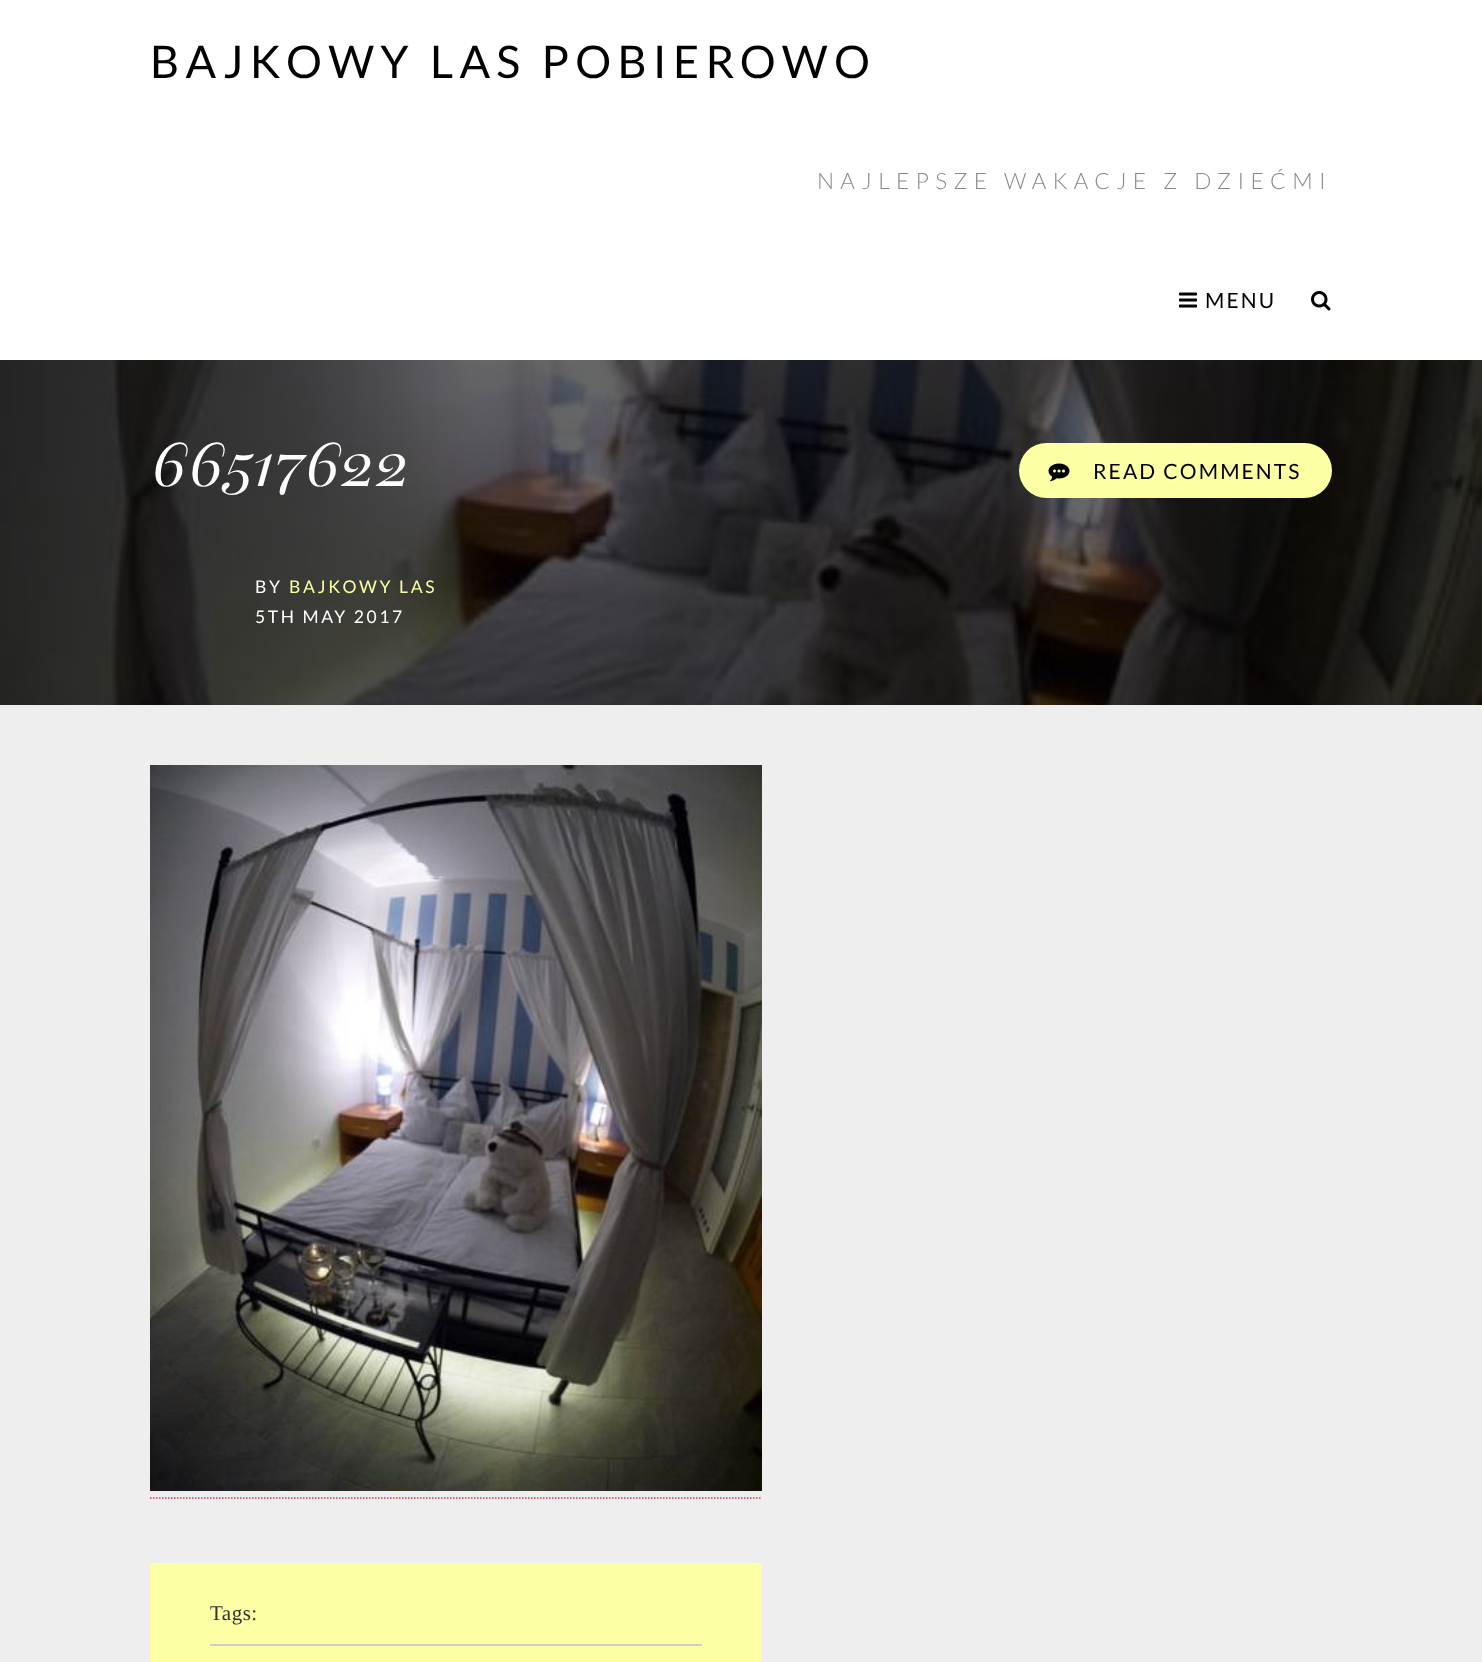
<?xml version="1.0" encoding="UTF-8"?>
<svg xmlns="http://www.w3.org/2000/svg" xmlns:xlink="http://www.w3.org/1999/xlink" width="1482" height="1662">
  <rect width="100%" height="100%" fill="#eeeeee" />
  <rect width="1482" height="360" fill="#ffffff" />
  <image x="1179" y="292" width="18" height="16" xlink:href="image1.png" />
  <image x="1311" y="291" width="20" height="20" xlink:href="image2.png" />
  <image x="0" y="360" width="1482" height="345" xlink:href="image3.png" />
  <rect x="1019" y="443" width="313" height="55" rx="27.5" fill="#fcffa4" />
  <image x="1048" y="463" width="22" height="19" xlink:href="image4.png" />
  <image x="150" y="765" width="612" height="726" xlink:href="image5.png" />
  <path d="M 150 1498 h 612" fill="none" stroke="#d8304c" stroke-width="1.5" stroke-dasharray="1.5 1.5" />
  <rect x="150" y="1563" width="612" height="99" fill="#fcffa4" />
  <rect x="210" y="1644" width="492" height="2" fill="#cccccc" />
  <text x="150" y="78" style="font-family: Lato; font-size: 45px; letter-spacing: 6.3px; fill: #000000">BAJKOWY LAS POBIEROWO</text>
  <text x="817" y="189" style="font-family: Lato; font-size: 22.5px; font-weight: 300; letter-spacing: 6.3px; fill: #888888">NAJLEPSZE WAKACJE Z DZIEĆMI</text>
  <text x="1205" y="308" style="font-family: Lato; font-size: 21px; letter-spacing: 2.1px; fill: #000000">MENU</text>
  <text x="150" y="486" style="font-family: Playfair; font-size: 75px; font-weight: 300; font-style: italic; fill: #ffffff">66517622</text>
  <text x="1093" y="479" style="font-family: Lato; font-size: 21px; letter-spacing: 2.1px; fill: #000000">READ COMMENTS</text>
  <text x="255" y="593" style="font-family: Lato; font-size: 17.5px; letter-spacing: 2.6px; fill: #ffffff">BY</text>
  <text x="289" y="593" style="font-family: Lato; font-size: 17.5px; letter-spacing: 2.6px; fill: #fcffa4">BAJKOWY LAS</text>
  <text x="255" y="623" style="font-family: Lato; font-size: 17.5px; letter-spacing: 2.6px; fill: #ffffff">5TH MAY 2017</text>
  <text x="210" y="1620" style="font-family: Liberation Serif; font-size: 21px; letter-spacing: 0.5px; fill: #333333">Tags:</text>
</svg>
